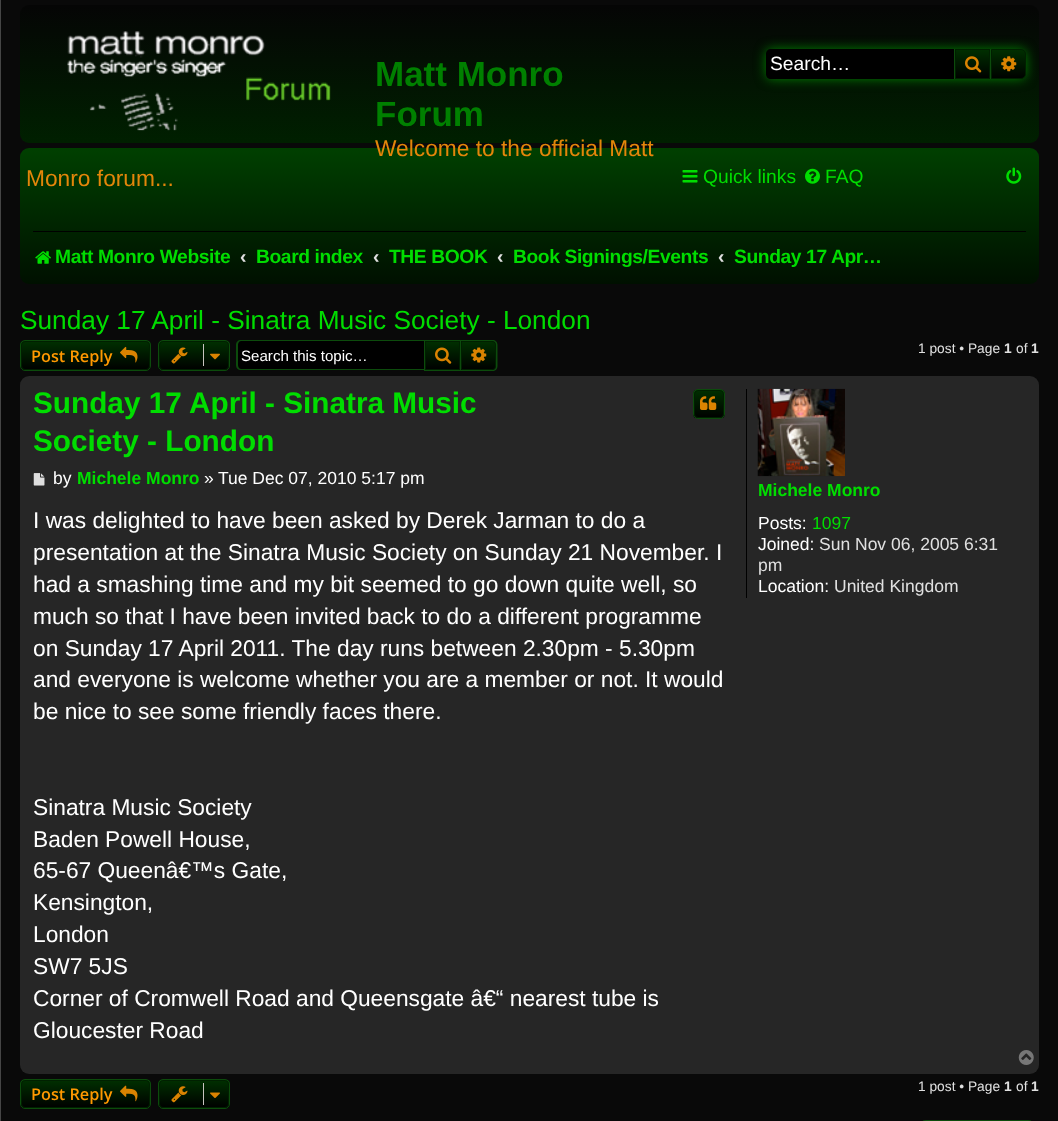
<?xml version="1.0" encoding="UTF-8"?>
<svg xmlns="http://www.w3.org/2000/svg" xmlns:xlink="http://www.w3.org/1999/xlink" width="1058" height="1121">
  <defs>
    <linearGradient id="g1" gradientUnits="userSpaceOnUse" x1="529" y1="5" x2="529" y2="143"><stop offset="0" stop-color="#050505" /><stop offset="1" stop-color="#002000" /></linearGradient>
    <linearGradient id="g2" gradientUnits="userSpaceOnUse" x1="973" y1="49" x2="973" y2="79"><stop offset="0" stop-color="#003000" /><stop offset="1" stop-color="#000000" /></linearGradient>
    <linearGradient id="g3" gradientUnits="userSpaceOnUse" x1="1009" y1="49" x2="1009" y2="79"><stop offset="0" stop-color="#003000" /><stop offset="1" stop-color="#000000" /></linearGradient>
    <linearGradient id="g4" gradientUnits="userSpaceOnUse" x1="529" y1="147" x2="529" y2="284"><stop offset="0" stop-color="#004000" /><stop offset="1" stop-color="#001000" /></linearGradient>
    <clipPath id="clip1"><rect x="20" y="340" width="131" height="31" rx="5" /></clipPath>
    <linearGradient id="g5" gradientUnits="userSpaceOnUse" x1="86" y1="341" x2="86" y2="370"><stop offset="0" stop-color="#003000" /><stop offset="1" stop-color="#000000" /></linearGradient>
    <clipPath id="clip2"><rect x="158" y="340" width="72" height="31" rx="5" /></clipPath>
    <linearGradient id="g6" gradientUnits="userSpaceOnUse" x1="194" y1="341" x2="194" y2="370"><stop offset="0" stop-color="#003000" /><stop offset="1" stop-color="#000000" /></linearGradient>
    <linearGradient id="g7" gradientUnits="userSpaceOnUse" x1="443" y1="341" x2="443" y2="370"><stop offset="0" stop-color="#003000" /><stop offset="1" stop-color="#000000" /></linearGradient>
    <linearGradient id="g8" gradientUnits="userSpaceOnUse" x1="479" y1="341" x2="479" y2="370"><stop offset="0" stop-color="#003000" /><stop offset="1" stop-color="#000000" /></linearGradient>
    <clipPath id="clip3"><rect x="693" y="389" width="32" height="30" rx="5" /></clipPath>
    <linearGradient id="g9" gradientUnits="userSpaceOnUse" x1="709" y1="390" x2="709" y2="418"><stop offset="0" stop-color="#003000" /><stop offset="1" stop-color="#000000" /></linearGradient>
    <clipPath id="clip4"><rect x="20" y="1079" width="131" height="30" rx="5" /></clipPath>
    <linearGradient id="g10" gradientUnits="userSpaceOnUse" x1="86" y1="1080" x2="86" y2="1108"><stop offset="0" stop-color="#003000" /><stop offset="1" stop-color="#000000" /></linearGradient>
    <clipPath id="clip5"><rect x="158" y="1079" width="72" height="30" rx="5" /></clipPath>
    <linearGradient id="g11" gradientUnits="userSpaceOnUse" x1="194" y1="1080" x2="194" y2="1108"><stop offset="0" stop-color="#003000" /><stop offset="1" stop-color="#000000" /></linearGradient>
  </defs>
  <rect width="100%" height="100%" fill="#090909" />
  <rect x="0.5" y="-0.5" width="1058" height="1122" fill="none" stroke="#454545" />
  <rect x="20" y="5" width="1019" height="138" rx="9" fill="url(#g1)" />
  <image x="67" y="31" width="264" height="100" xlink:href="image1.png" />
  <rect x="766" y="49" width="260" height="30" rx="5" fill="#007f00" filter="blur(6px)" />
  <path d="M 771 49 h 183 v 30 h -183 c -3 0 -5 -2 -5 -5 v -20 c 0 -3 2 -5 5 -5 z" fill="#000000" />
  <rect x="956" y="50" width="33" height="28" fill="url(#g2)" />
  <rect x="955.5" y="49.5" width="34" height="29" fill="none" stroke="#002000" />
  <rect x="990" y="49" width="1" height="30" fill="#0c4b0c" />
  <rect x="954" y="49" width="1" height="30" fill="#0c4b0c" />
  <image x="965" y="56" width="17" height="17" xlink:href="image2.png" />
  <path d="M 991.5 49.5 h 29.5 c 2.5 0 4.5 2 4.5 4.5 v 20 c 0 2.5 -2 4.5 -4.5 4.5 h -29.5 z" fill="url(#g3)" stroke="#002000" />
  <image x="1001" y="56" width="16" height="16" xlink:href="image3.png" />
  <rect x="20" y="148" width="1019" height="136" rx="9" fill="url(#g4)" />
  <image x="682" y="170" width="16" height="13" xlink:href="image4.png" />
  <image x="805" y="168" width="15" height="16" xlink:href="image5.png" />
  <image x="1006" y="167" width="16" height="17" xlink:href="image6.png" />
  <rect x="33" y="231" width="993" height="1" fill="#000000" />
  <image x="35" y="251" width="16" height="13" xlink:href="image7.png" />
  <g clip-path="url(#clip1)">
    <rect x="20" y="341" width="131" height="29" fill="url(#g5)" />
  </g>
  <rect x="21.5" y="341.5" width="128" height="28" rx="3.5" fill="none" stroke="#002000" />
  <rect x="20.5" y="340.5" width="130" height="30" rx="4.5" fill="none" stroke="#0c4b0c" />
  <image x="120" y="346" width="18" height="17" xlink:href="image8.png" />
  <g clip-path="url(#clip2)">
    <rect x="158" y="341" width="72" height="29" fill="url(#g6)" />
  </g>
  <rect x="159.5" y="341.5" width="69" height="28" rx="3.5" fill="none" stroke="#002000" />
  <rect x="158.5" y="340.5" width="71" height="30" rx="4.5" fill="none" stroke="#0c4b0c" />
  <image x="171" y="347" width="17" height="17" xlink:href="image9.png" />
  <rect x="203" y="344" width="1" height="22" fill="#c7c3bf" />
  <image x="210" y="353" width="10" height="7" xlink:href="image10.png" />
  <path d="M 242 341 h 182 v 28 h -182 c -2 0 -4 -2 -4 -4 v -20 c 0 -2 2 -4 4 -4 z" fill="#000000" />
  <path d="M 241 340 h 183 v 30 h -183 c -3 0 -5 -2 -5 -5 v -20 c 0 -3 2 -5 5 -5 z m 0 1 h 183 v 28 h -183 c -2 0 -3 -2 -3 -4 v -20 c 0 -2 1 -4 3 -4 z" fill="#0c4b0c" fill-rule="evenodd" />
  <rect x="426" y="342" width="33" height="27" fill="url(#g7)" />
  <rect x="425.5" y="341.5" width="34" height="28" fill="none" stroke="#002000" />
  <rect x="424.5" y="340.5" width="36" height="30" fill="none" stroke="#0c4b0c" />
  <image x="435" y="347" width="17" height="17" xlink:href="image11.png" />
  <path d="M 461.5 341.5 h 30.5 c 2 0 3.5 1.5 3.5 3.5 v 21 c 0 2 -1.5 3.5 -3.5 3.5 h -30.5 z" fill="url(#g8)" stroke="#002000" />
  <path d="M 461 340 h 31.5 c 3 0 5 2 5 5 v 21 c 0 3 -2 5 -5 5 h -31.5 z m 0 1 h 31.5 c 2 0 3.5 2 3.5 4 v 21 c 0 2.5 -1.5 4 -3.5 4 h -31.5 z" fill="#0c4b0c" fill-rule="evenodd" />
  <image x="471" y="347" width="16" height="16" xlink:href="image12.png" />
  <rect x="20" y="376" width="1019" height="698" rx="9" fill="#262626" />
  <g clip-path="url(#clip3)">
    <rect x="693" y="390" width="32" height="28" fill="url(#g9)" />
  </g>
  <rect x="694.5" y="390.5" width="29" height="27" rx="3.5" fill="none" stroke="#002000" />
  <rect x="693.5" y="389.5" width="31" height="29" rx="4.5" fill="none" stroke="#0c4b0c" />
  <image x="700" y="396" width="17" height="14" xlink:href="image13.png" />
  <image x="33" y="473" width="12" height="13" xlink:href="image14.png" />
  <rect x="746" y="389" width="1" height="209" fill="#000000" />
  <image x="757" y="388" width="88" height="89" xlink:href="image15.png" />
  <image x="1018" y="1050" width="16" height="15" xlink:href="image16.png" />
  <g clip-path="url(#clip4)">
    <rect x="20" y="1080" width="131" height="28" fill="url(#g10)" />
  </g>
  <rect x="21.5" y="1080.5" width="128" height="27" rx="3.5" fill="none" stroke="#002000" />
  <rect x="20.5" y="1079.5" width="130" height="29" rx="4.5" fill="none" stroke="#0c4b0c" />
  <image x="120" y="1085" width="18" height="17" xlink:href="image17.png" />
  <g clip-path="url(#clip5)">
    <rect x="158" y="1080" width="72" height="28" fill="url(#g11)" />
  </g>
  <rect x="159.5" y="1080.5" width="69" height="27" rx="3.5" fill="none" stroke="#002000" />
  <rect x="158.5" y="1079.5" width="71" height="29" rx="4.5" fill="none" stroke="#0c4b0c" />
  <image x="171" y="1086" width="17" height="17" xlink:href="image18.png" />
  <rect x="203" y="1083" width="1" height="22" fill="#c7c3bf" />
  <image x="210" y="1092" width="10" height="6" xlink:href="image19.png" />
  <rect x="921.5" y="1120.5" width="111" height="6" rx="4.5" fill="none" stroke="#0c4b0c" />
  <text x="375" y="86" style="font-family: Liberation Sans; font-size: 35px; font-weight: bold; fill: #008000">Matt Monro</text>
  <text x="375" y="126" style="font-family: Liberation Sans; font-size: 35px; font-weight: bold; fill: #008000">Forum</text>
  <text x="375" y="156" style="font-family: Liberation Sans; font-size: 22.75px; fill: #e3860a">Welcome to the official Matt</text>
  <text x="26" y="186" style="font-family: Liberation Sans; font-size: 22.75px; fill: #e3860a">Monro forum...</text>
  <text x="770" y="70" style="font-family: Liberation Sans; font-size: 19.25px; fill: #ffffff">Search…</text>
  <text x="703" y="183" style="font-family: Liberation Sans; font-size: 19.25px; fill: #00dd00">Quick links</text>
  <text x="825" y="183" style="font-family: Liberation Sans; font-size: 19.25px; fill: #00dd00">FAQ</text>
  <text x="55" y="263" style="font-family: Liberation Sans; font-size: 19.25px; font-weight: bold; letter-spacing: -0.4px; fill: #00dd00">Matt Monro Website</text>
  <text x="240" y="263" style="font-family: Liberation Sans; font-size: 19.25px; font-weight: bold; fill: #e0e0e0">‹</text>
  <text x="256" y="263" style="font-family: Liberation Sans; font-size: 19.25px; font-weight: bold; letter-spacing: -0.4px; fill: #00dd00">Board index</text>
  <text x="373" y="263" style="font-family: Liberation Sans; font-size: 19.25px; font-weight: bold; fill: #e0e0e0">‹</text>
  <text x="389" y="263" style="font-family: Liberation Sans; font-size: 19.25px; font-weight: bold; letter-spacing: -0.4px; fill: #00dd00">THE BOOK</text>
  <text x="497" y="263" style="font-family: Liberation Sans; font-size: 19.25px; font-weight: bold; fill: #e0e0e0">‹</text>
  <text x="513" y="263" style="font-family: Liberation Sans; font-size: 19.25px; font-weight: bold; letter-spacing: -0.4px; fill: #00dd00">Book Signings/Events</text>
  <text x="718" y="263" style="font-family: Liberation Sans; font-size: 19.25px; font-weight: bold; fill: #e0e0e0">‹</text>
  <text x="734" y="263" style="font-family: Liberation Sans; font-size: 19.25px; font-weight: bold; letter-spacing: -0.4px; fill: #00dd00">Sunday 17 Apr…</text>
  <text x="20" y="329" style="font-family: Liberation Sans; font-size: 26.25px; fill: #00dd00">Sunday 17 April - Sinatra Music Society - London</text>
  <text x="31" y="362" style="font-family: Open Sans; font-size: 16.25px; font-weight: 600; fill: #ff9900">Post Reply</text>
  <text x="241" y="361" style="font-family: Liberation Sans; font-size: 15.1px; fill: #ffffff">Search this topic…</text>
  <text x="918" y="353" style="font-family: Liberation Sans; font-size: 13.75px; fill: #e0e0e0">1 post • Page</text>
  <text x="1004" y="353" style="font-family: Liberation Sans; font-size: 13.75px; font-weight: bold; fill: #e0e0e0">1</text>
  <text x="1016" y="353" style="font-family: Liberation Sans; font-size: 13.75px; fill: #e0e0e0">of</text>
  <text x="1031" y="353" style="font-family: Liberation Sans; font-size: 13.75px; font-weight: bold; fill: #e0e0e0">1</text>
  <text x="33" y="413" style="font-family: Liberation Sans; font-size: 29.75px; font-weight: bold; fill: #00dd00">Sunday 17 April - Sinatra Music</text>
  <text x="33" y="451" style="font-family: Liberation Sans; font-size: 29.75px; font-weight: bold; fill: #00dd00">Society - London</text>
  <text x="53" y="484" style="font-family: Liberation Sans; font-size: 17.5px; fill: #ffffff">by</text>
  <text x="77" y="484" style="font-family: Liberation Sans; font-size: 17.5px; font-weight: bold; fill: #00dd00">Michele Monro</text>
  <text x="204" y="484" style="font-family: Liberation Sans; font-size: 17.5px; fill: #ffffff">»</text>
  <text x="218" y="484" style="font-family: Liberation Sans; font-size: 17.5px; fill: #ffffff">Tue Dec 07, 2010 5:17 pm</text>
  <text x="33" y="528" style="font-family: Liberation Sans; font-size: 22.75px; fill: #ffffff">I was delighted to have been asked by Derek Jarman to do a</text>
  <text x="33" y="560" style="font-family: Liberation Sans; font-size: 22.75px; fill: #ffffff">presentation at the Sinatra Music Society on Sunday 21 November. I</text>
  <text x="33" y="592" style="font-family: Liberation Sans; font-size: 22.75px; fill: #ffffff">had a smashing time and my bit seemed to go down quite well, so</text>
  <text x="33" y="624" style="font-family: Liberation Sans; font-size: 22.75px; fill: #ffffff">much so that I have been invited back to do a different programme</text>
  <text x="33" y="656" style="font-family: Liberation Sans; font-size: 22.75px; fill: #ffffff">on Sunday 17 April 2011. The day runs between 2.30pm - 5.30pm</text>
  <text x="33" y="687" style="font-family: Liberation Sans; font-size: 22.75px; fill: #ffffff">and everyone is welcome whether you are a member or not. It would</text>
  <text x="33" y="719" style="font-family: Liberation Sans; font-size: 22.75px; fill: #ffffff">be nice to see some friendly faces there.</text>
  <text x="33" y="815" style="font-family: Liberation Sans; font-size: 22.75px; fill: #ffffff">Sinatra Music Society</text>
  <text x="33" y="847" style="font-family: Liberation Sans; font-size: 22.75px; fill: #ffffff">Baden Powell House,</text>
  <text x="33" y="878" style="font-family: Liberation Sans; font-size: 22.75px; fill: #ffffff">65-67 Queenâ€™s Gate,</text>
  <text x="33" y="910" style="font-family: Liberation Sans; font-size: 22.75px; fill: #ffffff">Kensington,</text>
  <text x="33" y="942" style="font-family: Liberation Sans; font-size: 22.75px; fill: #ffffff">London</text>
  <text x="33" y="974" style="font-family: Liberation Sans; font-size: 22.75px; fill: #ffffff">SW7 5JS</text>
  <text x="33" y="1006" style="font-family: Liberation Sans; font-size: 22.75px; fill: #ffffff">Corner of Cromwell Road and Queensgate â€“ nearest tube is</text>
  <text x="33" y="1038" style="font-family: Liberation Sans; font-size: 22.75px; fill: #ffffff">Gloucester Road</text>
  <text x="758" y="496" style="font-family: Liberation Sans; font-size: 17.5px; font-weight: bold; fill: #00dd00">Michele Monro</text>
  <text x="758" y="529" style="font-family: Liberation Sans; font-size: 17.5px; fill: #ffffff">Posts:</text>
  <text x="812" y="529" style="font-family: Liberation Sans; font-size: 17.5px; fill: #00dd00">1097</text>
  <text x="758" y="550" style="font-family: Liberation Sans; font-size: 17.5px; fill: #ffffff">Joined:</text>
  <text x="819" y="550" style="font-family: Liberation Sans; font-size: 17.5px; fill: #e0e0e0">Sun Nov 06, 2005 6:31</text>
  <text x="758" y="571" style="font-family: Liberation Sans; font-size: 17.5px; fill: #e0e0e0">pm</text>
  <text x="758" y="592" style="font-family: Liberation Sans; font-size: 17.5px; fill: #ffffff">Location:</text>
  <text x="834" y="592" style="font-family: Liberation Sans; font-size: 17.5px; fill: #e0e0e0">United Kingdom</text>
  <text x="31" y="1100" style="font-family: Open Sans; font-size: 16.25px; font-weight: 600; fill: #ff9900">Post Reply</text>
  <text x="918" y="1091" style="font-family: Liberation Sans; font-size: 13.75px; fill: #e0e0e0">1 post • Page</text>
  <text x="1004" y="1091" style="font-family: Liberation Sans; font-size: 13.75px; font-weight: bold; fill: #e0e0e0">1</text>
  <text x="1016" y="1091" style="font-family: Liberation Sans; font-size: 13.75px; fill: #e0e0e0">of</text>
  <text x="1031" y="1091" style="font-family: Liberation Sans; font-size: 13.75px; font-weight: bold; fill: #e0e0e0">1</text>
</svg>
